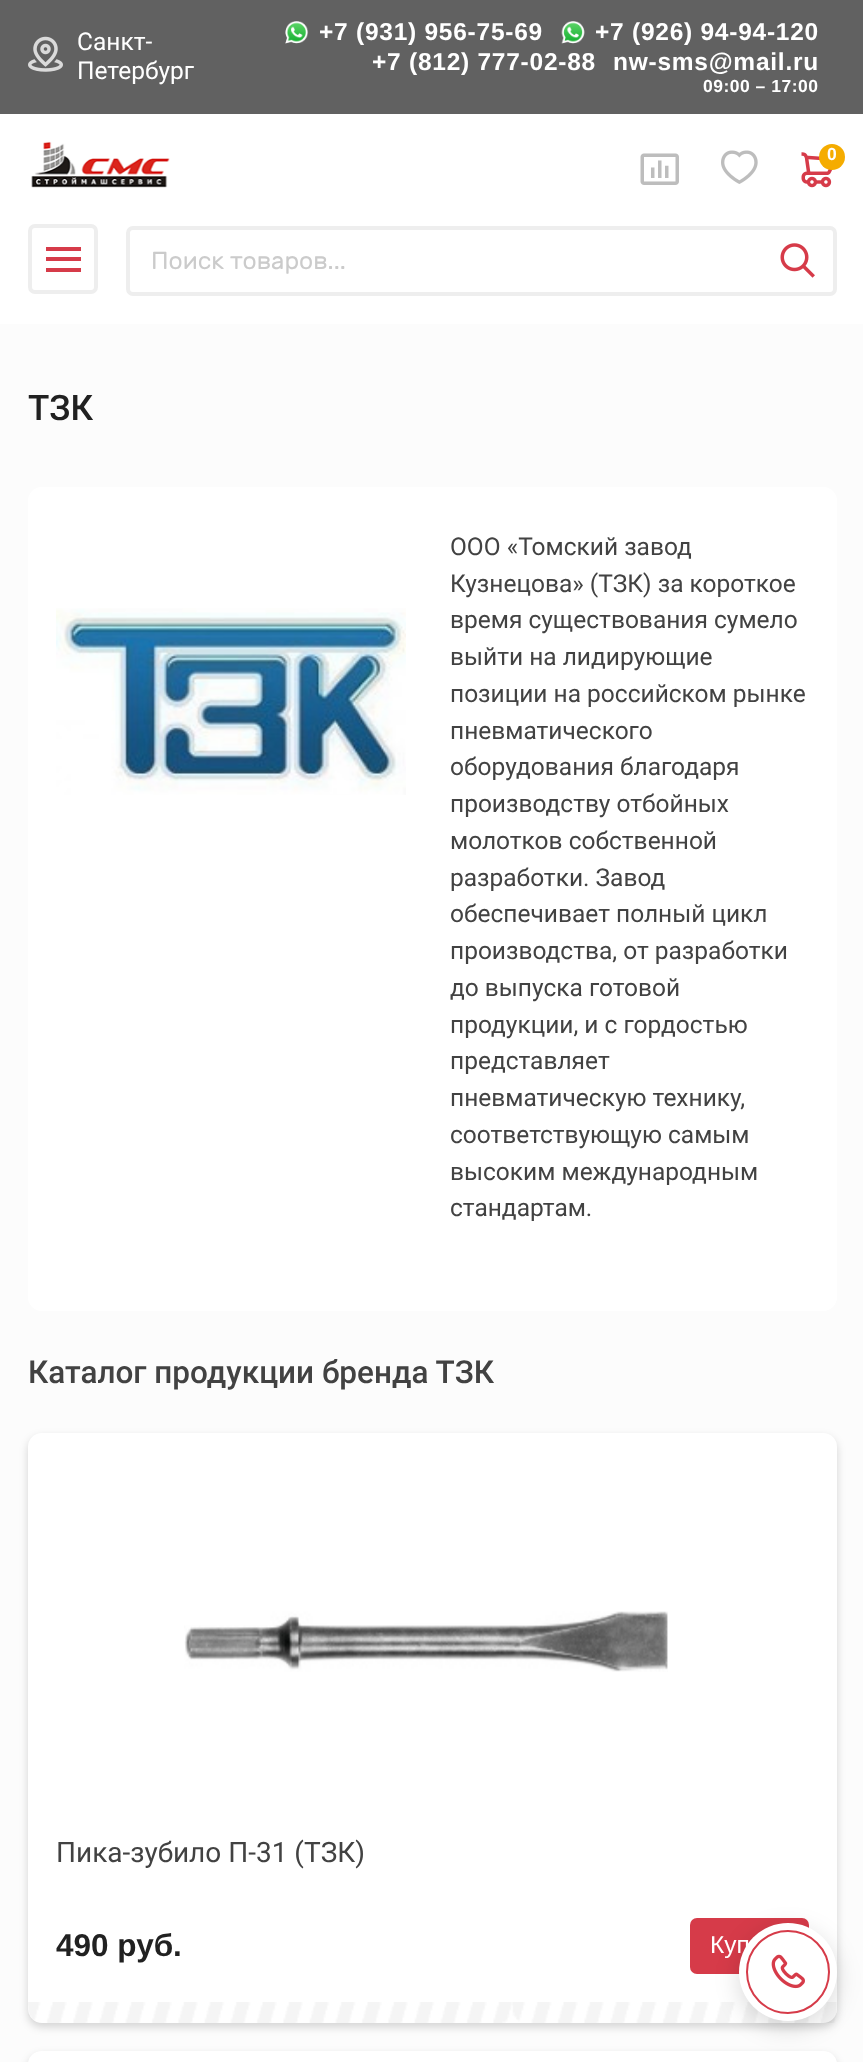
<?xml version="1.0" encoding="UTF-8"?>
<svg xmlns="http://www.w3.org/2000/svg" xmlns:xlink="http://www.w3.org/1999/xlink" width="863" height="2062">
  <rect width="100%" height="100%" fill="#fcfcfc" />
  <rect width="863" height="114" fill="#616161" />
  <image x="28" y="36" width="35" height="36" xlink:href="image1.png" />
  <image x="285" y="21" width="24" height="23" xlink:href="image2.png" />
  <image x="561" y="21" width="24" height="23" xlink:href="image3.png" />
  <rect y="114" width="863" height="210" fill="#ffffff" />
  <image x="640" y="153" width="39" height="32" xlink:href="image4.png" />
  <image x="721" y="150" width="37" height="34" xlink:href="image5.png" />
  <image x="801" y="152" width="32" height="36" xlink:href="image6.png" />
  <circle cx="832" cy="157" r="13" fill="#f5ac00" />
  <rect x="30" y="226" width="66" height="66" rx="5" fill="none" stroke="#eeeeee" stroke-width="4" />
  <rect x="46" y="247" width="35" height="4" fill="#d63b49" />
  <rect x="46" y="257" width="35" height="4" fill="#d63b49" />
  <rect x="46" y="268" width="35" height="4" fill="#d63b49" />
  <image x="31" y="141" width="139" height="47" xlink:href="image7.png" />
  <rect x="128" y="228" width="707" height="66" rx="5" fill="none" stroke="#eeeeee" stroke-width="4" />
  <image x="780" y="243" width="35" height="35" xlink:href="image8.png" />
  <rect x="28" y="487" width="809" height="824" rx="14" fill="#ffffff" />
  <image x="56" y="608" width="350" height="187" xlink:href="image9.png" />
  <rect x="28" y="1437" width="809" height="590" rx="14" fill="#000000" fill-opacity="0.16" filter="blur(4.5px)" />
  <rect x="28" y="1433" width="809" height="590" rx="14" fill="#ffffff" />
  <image x="184" y="1611" width="484" height="61" xlink:href="image10.png" />
  <rect x="690" y="1918" width="119" height="56" rx="7" fill="#d63b49" />
  <image x="28" y="2002" width="809" height="21" xlink:href="image11.png" />
  <rect x="28" y="2055" width="809" height="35" rx="14" fill="#000000" fill-opacity="0.16" filter="blur(4.5px)" />
  <rect x="28" y="2051" width="809" height="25" rx="14" fill="#ffffff" />
  <rect x="739" y="1930" width="98" height="98" rx="49" fill="#000000" fill-opacity="0.14" filter="blur(12px)" />
  <circle cx="788" cy="1972" r="49" fill="#ffffff" />
  <text x="77" y="50" style="font-family: Roboto; font-size: 24.5px; fill: #ffffff">Санкт-</text>
  <text x="77" y="79" style="font-family: Roboto; font-size: 24.5px; fill: #ffffff">Петербург</text>
  <text x="319" y="40" style="font-family: Liberation Sans; font-size: 24.5px; font-weight: bold; letter-spacing: 0.75px; fill: #ffffff">+7 (931) 956-75-69</text>
  <text x="595" y="40" style="font-family: Liberation Sans; font-size: 24.5px; font-weight: bold; letter-spacing: 0.75px; fill: #ffffff">+7 (926) 94-94-120</text>
  <text x="372" y="70" style="font-family: Liberation Sans; font-size: 24.5px; font-weight: bold; letter-spacing: 0.75px; fill: #ffffff">+7 (812) 777-02-88</text>
  <text x="613" y="70" style="font-family: Liberation Sans; font-size: 24.5px; font-weight: bold; letter-spacing: 0.75px; fill: #ffffff">nw-sms@mail.ru</text>
  <text x="703" y="92" style="font-family: Liberation Sans; font-size: 17.5px; font-weight: bold; letter-spacing: 0.5px; fill: #ffffff">09:00 – 17:00</text>
  <text x="827" y="160" style="font-family: Liberation Sans; font-size: 17.5px; font-weight: bold; fill: #ffffff">0</text>
  <text x="151" y="269" style="font-family: Rubik; font-size: 24.5px; fill: #cbcbcb">Поиск товаров...</text>
  <text x="28" y="420" style="font-family: Roboto; font-size: 35px; font-weight: 500; fill: #212121">ТЗК</text>
  <text x="450" y="555" style="font-family: Roboto; font-size: 24.5px; fill: #424242">ООО «Томский завод</text>
  <text x="450" y="592" style="font-family: Roboto; font-size: 24.5px; fill: #424242">Кузнецова» (ТЗК) за короткое</text>
  <text x="450" y="628" style="font-family: Roboto; font-size: 24.5px; fill: #424242">время существования сумело</text>
  <text x="450" y="665" style="font-family: Roboto; font-size: 24.5px; fill: #424242">выйти на лидирующие</text>
  <text x="450" y="702" style="font-family: Roboto; font-size: 24.5px; fill: #424242">позиции на российском рынке</text>
  <text x="450" y="739" style="font-family: Roboto; font-size: 24.5px; fill: #424242">пневматического</text>
  <text x="450" y="775" style="font-family: Roboto; font-size: 24.5px; fill: #424242">оборудования благодаря</text>
  <text x="450" y="812" style="font-family: Roboto; font-size: 24.5px; fill: #424242">производству отбойных</text>
  <text x="450" y="849" style="font-family: Roboto; font-size: 24.5px; fill: #424242">молотков собственной</text>
  <text x="450" y="886" style="font-family: Roboto; font-size: 24.5px; fill: #424242">разработки. Завод</text>
  <text x="450" y="922" style="font-family: Roboto; font-size: 24.5px; fill: #424242">обеспечивает полный цикл</text>
  <text x="450" y="959" style="font-family: Roboto; font-size: 24.5px; fill: #424242">производства, от разработки</text>
  <text x="450" y="996" style="font-family: Roboto; font-size: 24.5px; fill: #424242">до выпуска готовой</text>
  <text x="450" y="1033" style="font-family: Roboto; font-size: 24.5px; fill: #424242">продукции, и с гордостью</text>
  <text x="450" y="1069" style="font-family: Roboto; font-size: 24.5px; fill: #424242">представляет</text>
  <text x="450" y="1106" style="font-family: Roboto; font-size: 24.5px; fill: #424242">пневматическую технику,</text>
  <text x="450" y="1143" style="font-family: Roboto; font-size: 24.5px; fill: #424242">соответствующую самым</text>
  <text x="450" y="1180" style="font-family: Roboto; font-size: 24.5px; fill: #424242">высоким международным</text>
  <text x="450" y="1216" style="font-family: Roboto; font-size: 24.5px; fill: #424242">стандартам.</text>
  <text x="28" y="1383" style="font-family: Roboto; font-size: 31.5px; font-weight: 500; fill: #424242">Каталог продукции бренда ТЗК</text>
  <text x="56" y="1862" style="font-family: Roboto; font-size: 28px; fill: #424242">Пика-зубило П-31 (ТЗК)</text>
  <text x="56" y="1956" style="font-family: Liberation Sans; font-size: 31.5px; font-weight: bold; fill: #212121">490 руб.</text>
  <text x="710" y="1953" style="font-family: Liberation Sans; font-size: 24.5px; fill: #ffffff">Куп</text>
  <circle cx="788" cy="1972" r="41" fill="none" stroke="#d63b49" stroke-width="2" />
  <image x="771" y="1954" width="34" height="35" xlink:href="image12.png" />
</svg>
